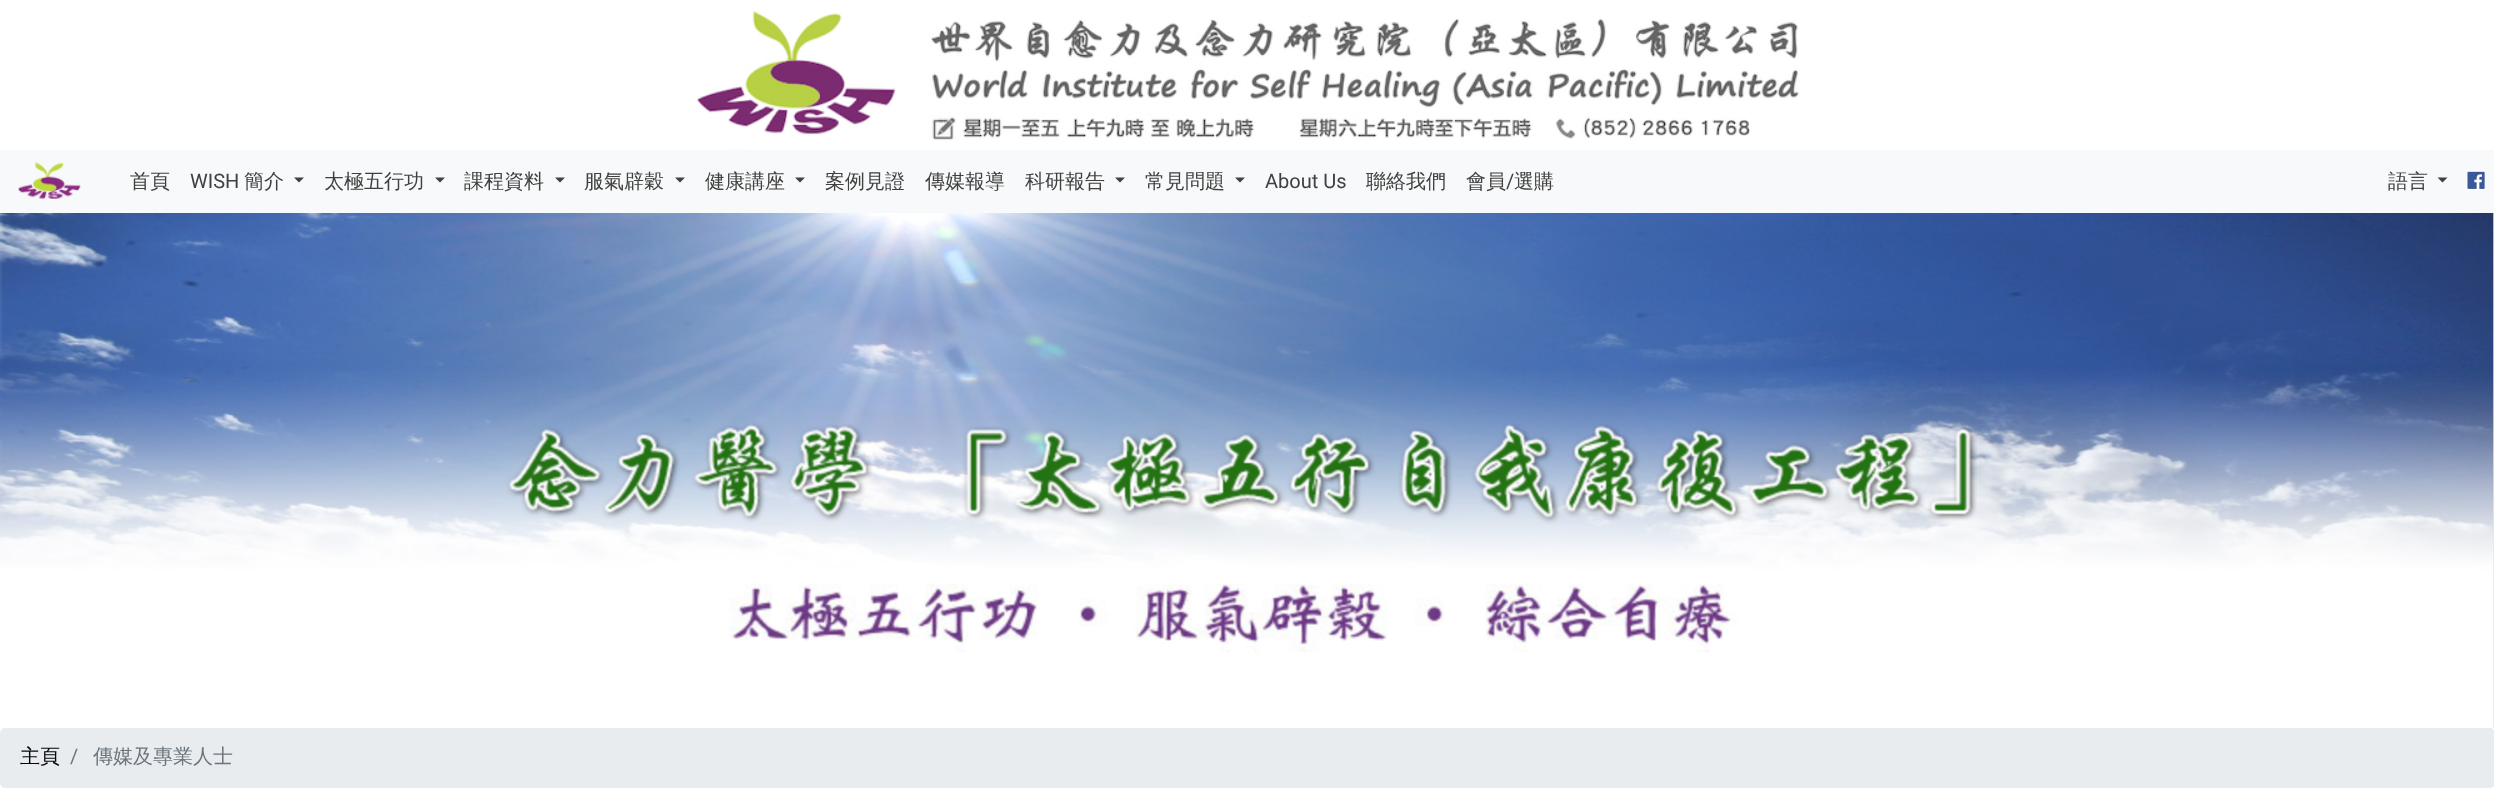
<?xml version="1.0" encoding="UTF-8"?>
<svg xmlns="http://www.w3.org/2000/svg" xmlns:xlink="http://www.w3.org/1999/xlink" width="2494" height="805">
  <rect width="100%" height="100%" fill="#ffffff" />
  <image x="697" y="11" width="1102" height="139" xlink:href="image1.png" />
  <rect y="150" width="2494" height="63" fill="#f8f9fa" />
  <image x="18" y="162" width="63" height="37" xlink:href="image2.png" />
  <path d="M 294 177.5 h 10 l -5 5 z" fill="#404040" />
  <path d="M 435 177.5 h 10 l -5 5 z" fill="#404040" />
  <path d="M 555 177.5 h 10 l -5 5 z" fill="#404040" />
  <path d="M 675 177.5 h 10 l -5 5 z" fill="#404040" />
  <path d="M 795 177.5 h 10 l -5 5 z" fill="#404040" />
  <path d="M 1115 177.5 h 10 l -5 5 z" fill="#404040" />
  <path d="M 1235 177.5 h 10 l -5 5 z" fill="#404040" />
  <path d="M 2437.5 177.5 h 10 l -5 5 z" fill="#404040" />
  <rect x="2468" y="170" width="17" height="20" fill="#ffffff" />
  <image x="2467" y="171" width="18" height="18" xlink:href="image3.png" />
  <image x="0" y="213" width="2494" height="515" xlink:href="image4.png" />
  <rect y="728" width="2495" height="60" rx="5" fill="#e9ecef" />
  <text x="130" y="188" style="font-family: WenQuanYi Zen Hei; font-size: 20px; font-weight: 500; fill: #404040">首頁</text>
  <text x="190" y="188" style="font-family: Roboto; font-size: 20px; fill: #404040">WISH</text>
  <text x="244" y="188" style="font-family: WenQuanYi Zen Hei; font-size: 20px; font-weight: 500; fill: #404040">簡介</text>
  <text x="324" y="188" style="font-family: WenQuanYi Zen Hei; font-size: 20px; font-weight: 500; fill: #404040">太極五行功</text>
  <text x="464" y="188" style="font-family: WenQuanYi Zen Hei; font-size: 20px; font-weight: 500; fill: #404040">課程資料</text>
  <text x="584" y="188" style="font-family: WenQuanYi Zen Hei; font-size: 20px; font-weight: 500; fill: #404040">服氣辟穀</text>
  <text x="705" y="188" style="font-family: WenQuanYi Zen Hei; font-size: 20px; font-weight: 500; fill: #404040">健康講座</text>
  <text x="825" y="188" style="font-family: WenQuanYi Zen Hei; font-size: 20px; font-weight: 500; fill: #404040">案例見證</text>
  <text x="925" y="188" style="font-family: WenQuanYi Zen Hei; font-size: 20px; font-weight: 500; fill: #404040">傳媒報導</text>
  <text x="1025" y="188" style="font-family: WenQuanYi Zen Hei; font-size: 20px; font-weight: 500; fill: #404040">科研報告</text>
  <text x="1145" y="188" style="font-family: WenQuanYi Zen Hei; font-size: 20px; font-weight: 500; fill: #404040">常見問題</text>
  <text x="1265" y="188" style="font-family: Roboto; font-size: 20px; fill: #404040">About Us</text>
  <text x="1366" y="188" style="font-family: WenQuanYi Zen Hei; font-size: 20px; font-weight: 500; fill: #404040">聯絡我們</text>
  <text x="1466" y="188" style="font-family: WenQuanYi Zen Hei; font-size: 20px; font-weight: 500; fill: #404040">會員</text>
  <text x="1506" y="188" style="font-family: Roboto; font-size: 20px; fill: #404040">/</text>
  <text x="1514" y="188" style="font-family: WenQuanYi Zen Hei; font-size: 20px; font-weight: 500; fill: #404040">選購</text>
  <text x="2388" y="188" style="font-family: WenQuanYi Zen Hei; font-size: 20px; font-weight: 500; fill: #404040">語言</text>
  <text x="20" y="763" style="font-family: WenQuanYi Zen Hei; font-size: 20px; font-weight: 500; fill: #000000">主頁</text>
  <text x="70" y="763" style="font-family: Roboto; font-size: 20px; fill: #6c757d">/</text>
  <text x="93" y="763" style="font-family: WenQuanYi Zen Hei; font-size: 20px; font-weight: 500; fill: #6c757d">傳媒及專業人士</text>
</svg>
